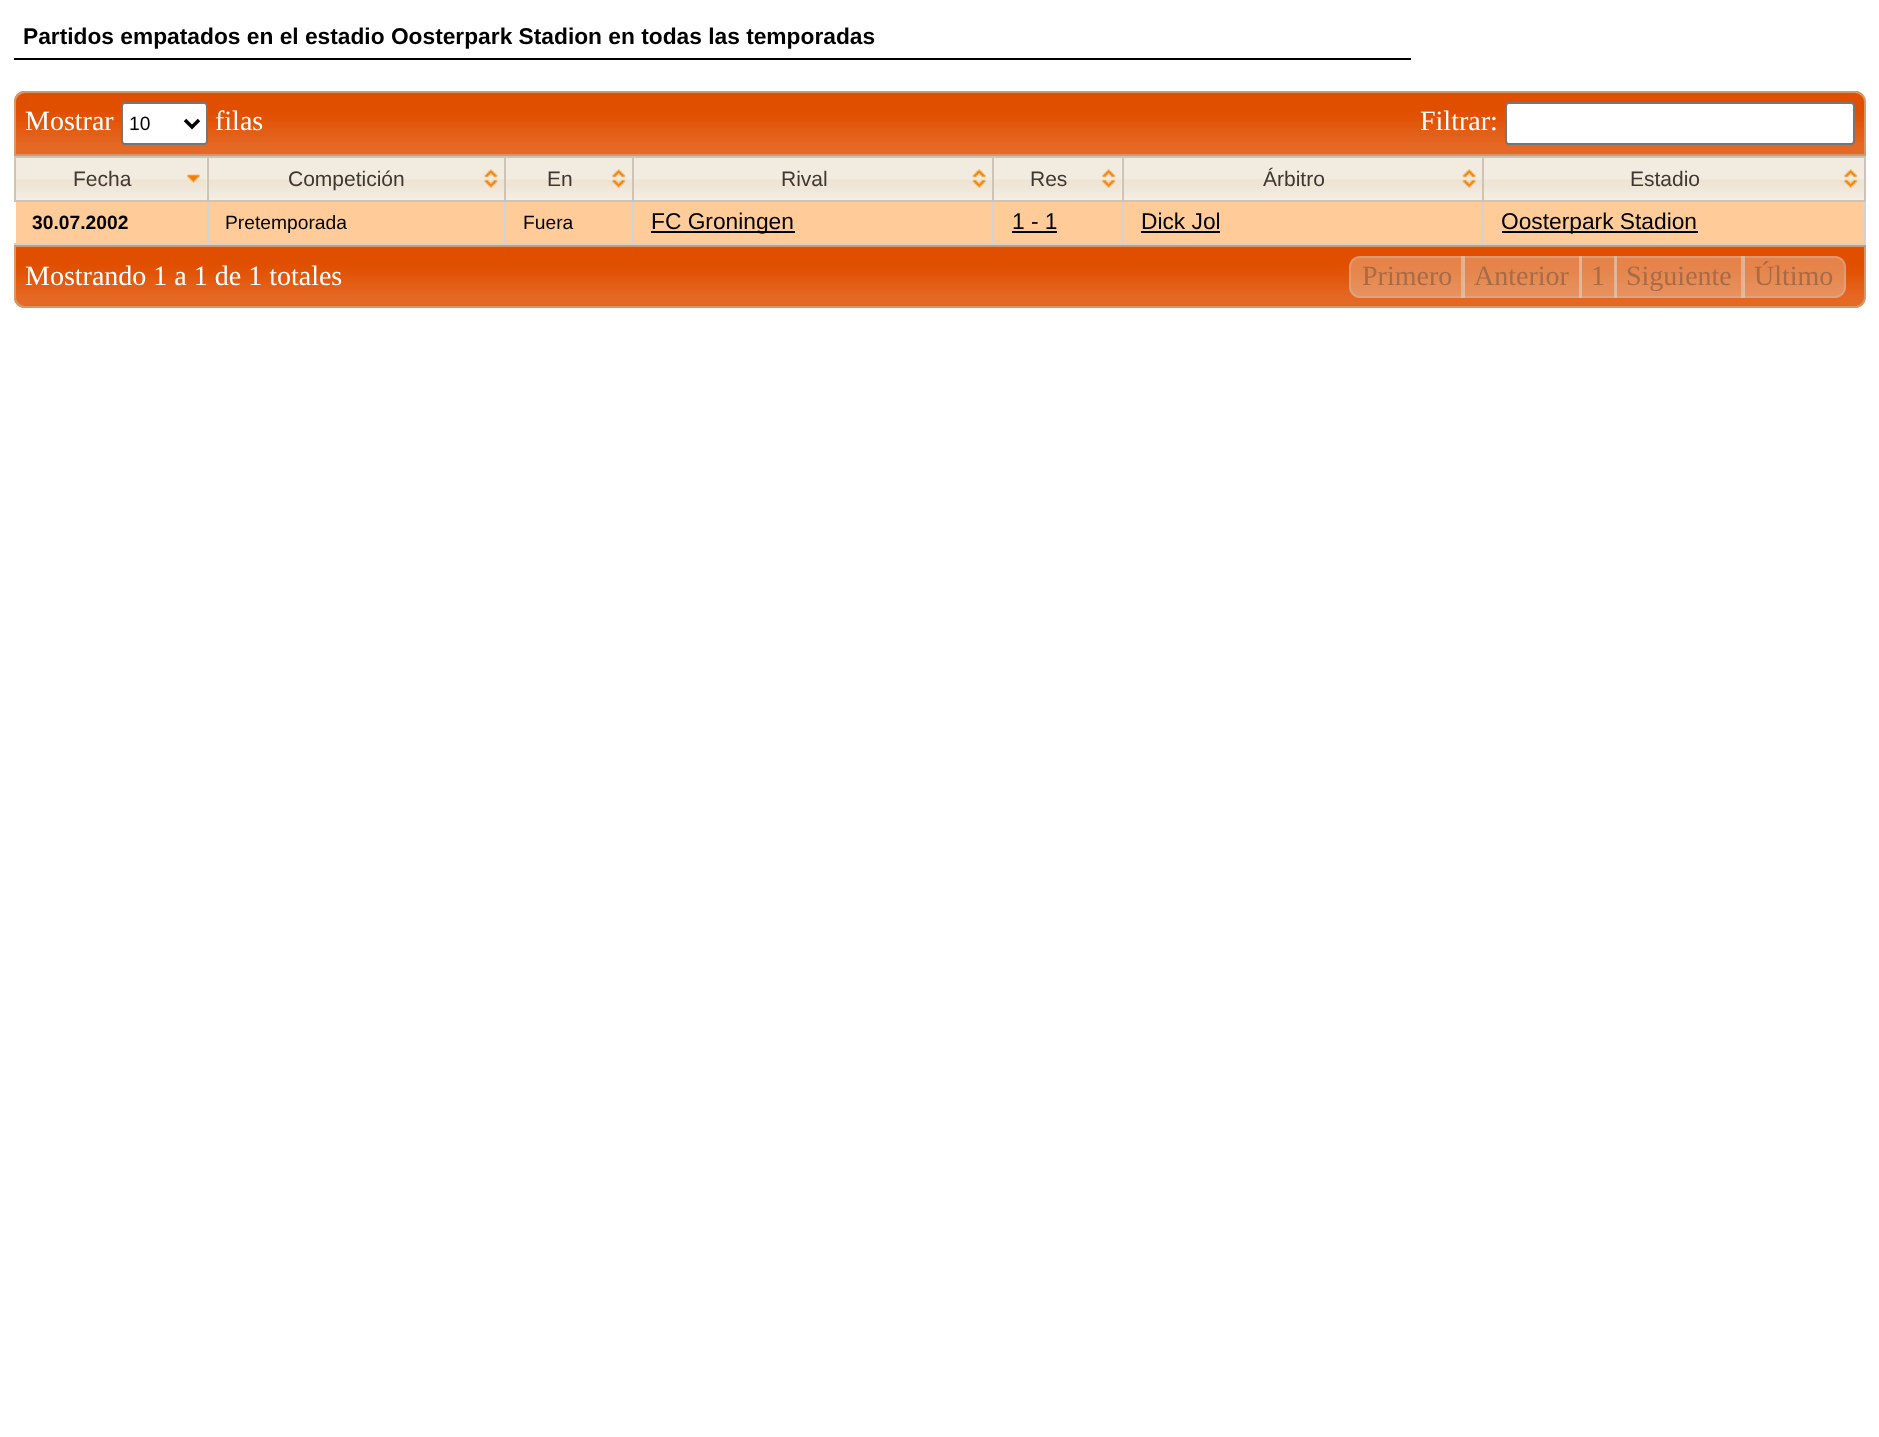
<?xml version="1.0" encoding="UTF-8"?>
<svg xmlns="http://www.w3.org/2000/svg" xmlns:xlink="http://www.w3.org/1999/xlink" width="1879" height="1437">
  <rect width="100%" height="100%" fill="#ffffff" />
  <rect x="14" y="58" width="1397" height="2" fill="#000000" />
  <image x="14" y="91" width="1852" height="63" xlink:href="image1.png" />
  <path d="M 25 92 h 1830 c 5.5 0 10 4.5 10 10 v 53 h -1850 v -53 c 0 -5.5 4.5 -10 10 -10 z" fill="none" stroke="#d49768" stroke-width="2" />
  <rect x="122" y="103" width="85" height="41" rx="3" fill="#ffffff" stroke="#767676" stroke-width="2" />
  <path d="M 185 120 l 7 7 l 7 -7" fill="none" stroke="#000000" stroke-width="3.5" />
  <rect x="1506" y="103" width="348" height="41" rx="3" fill="#ffffff" stroke="#767676" stroke-width="2" />
  <image x="16" y="158" width="191" height="42" xlink:href="image2.png" />
  <rect x="1482" y="156" width="384" height="2" fill="#cdc3b7" />
  <rect x="1864" y="200" width="2" height="45" fill="#d3d3d3" />
  <rect x="1864" y="156" width="2" height="45" fill="#cdc3b7" />
  <rect x="16" y="202" width="1848" height="41" fill="#ffcc99" />
  <rect x="1482" y="243" width="384" height="2" fill="#d3d3d3" />
  <rect x="1482" y="200" width="2" height="45" fill="#d3d3d3" />
  <rect x="1482" y="200" width="384" height="2" fill="#cdc3b7" />
  <rect x="1482" y="156" width="2" height="45" fill="#cdc3b7" />
  <rect x="1122" y="156" width="362" height="2" fill="#cdc3b7" />
  <rect x="1122" y="243" width="362" height="2" fill="#d3d3d3" />
  <rect x="1122" y="200" width="2" height="45" fill="#d3d3d3" />
  <rect x="1122" y="200" width="362" height="2" fill="#cdc3b7" />
  <rect x="1122" y="156" width="2" height="45" fill="#cdc3b7" />
  <rect x="992" y="156" width="132" height="2" fill="#cdc3b7" />
  <rect x="992" y="243" width="132" height="2" fill="#d3d3d3" />
  <rect x="992" y="200" width="2" height="45" fill="#d3d3d3" />
  <rect x="992" y="200" width="132" height="2" fill="#cdc3b7" />
  <rect x="992" y="156" width="2" height="45" fill="#cdc3b7" />
  <rect x="632" y="156" width="362" height="2" fill="#cdc3b7" />
  <rect x="632" y="243" width="362" height="2" fill="#d3d3d3" />
  <rect x="632" y="200" width="2" height="45" fill="#d3d3d3" />
  <rect x="632" y="200" width="362" height="2" fill="#cdc3b7" />
  <rect x="632" y="156" width="2" height="45" fill="#cdc3b7" />
  <rect x="504" y="156" width="130" height="2" fill="#cdc3b7" />
  <rect x="504" y="243" width="130" height="2" fill="#d3d3d3" />
  <rect x="504" y="200" width="2" height="45" fill="#d3d3d3" />
  <rect x="504" y="200" width="130" height="2" fill="#cdc3b7" />
  <rect x="504" y="156" width="2" height="45" fill="#cdc3b7" />
  <rect x="207" y="156" width="299" height="2" fill="#cdc3b7" />
  <image x="206" y="158" width="298" height="42" xlink:href="image4.png" />
  <rect x="207" y="243" width="299" height="2" fill="#d3d3d3" />
  <rect x="207" y="200" width="2" height="45" fill="#d3d3d3" />
  <rect x="207" y="200" width="299" height="2" fill="#cdc3b7" />
  <rect x="207" y="156" width="2" height="45" fill="#cdc3b7" />
  <rect x="14" y="156" width="194" height="2" fill="#cdc3b7" />
  <rect x="14" y="200" width="194" height="2" fill="#cdc3b7" />
  <rect x="14" y="156" width="2" height="45" fill="#cdc3b7" />
  <image x="186" y="174" width="14" height="9" xlink:href="image3.png" />
  <image x="484" y="169" width="14" height="19" xlink:href="image5.png" />
  <image x="506" y="158" width="126" height="42" xlink:href="image6.png" />
  <image x="612" y="169" width="14" height="19" xlink:href="image7.png" />
  <image x="634" y="158" width="358" height="42" xlink:href="image8.png" />
  <image x="972" y="169" width="14" height="19" xlink:href="image9.png" />
  <image x="994" y="158" width="128" height="42" xlink:href="image10.png" />
  <image x="1102" y="169" width="14" height="19" xlink:href="image11.png" />
  <image x="1124" y="158" width="358" height="42" xlink:href="image8.png" />
  <image x="1462" y="169" width="14" height="19" xlink:href="image9.png" />
  <image x="1484" y="158" width="380" height="42" xlink:href="image12.png" />
  <image x="1844" y="169" width="14" height="19" xlink:href="image7.png" />
  <rect x="14" y="243" width="194" height="2" fill="#d3d3d3" />
  <rect x="651" y="231" width="144" height="2" fill="#000000" />
  <rect x="1012" y="231" width="45" height="2" fill="#000000" />
  <rect x="1141" y="231" width="79" height="2" fill="#000000" />
  <rect x="1502" y="231" width="196" height="2" fill="#000000" />
  <image x="14" y="247" width="1852" height="61" xlink:href="image13.png" />
  <path d="M 15 246 h 1850 v 51 c 0 5.5 -4.5 10 -10 10 h -1830 c -5.5 0 -10 -4.5 -10 -10 z" fill="none" stroke="#d49768" stroke-width="2" />
  <path d="M 1360 256 h 105 v 42 h -105 c -6 0 -11 -5 -11 -11 v -20 c 0 -6 5 -11 11 -11 z" fill="#ede4d4" fill-opacity="0.35" />
  <path d="M 1360 257 h 104 v 40 h -104 c -5.5 0 -10 -4.5 -10 -10 v -20 c 0 -5.5 4.5 -10 10 -10 z" fill="none" stroke="#cdc3b7" stroke-opacity="0.35" stroke-width="2" />
  <rect x="1461" y="256" width="121" height="42" fill="#ede4d4" fill-opacity="0.35" />
  <rect x="1462" y="257" width="119" height="40" fill="none" stroke="#cdc3b7" stroke-opacity="0.35" stroke-width="2" />
  <rect x="1579" y="256" width="38" height="42" fill="#ede4d4" fill-opacity="0.35" />
  <rect x="1580" y="257" width="36" height="40" fill="none" stroke="#cdc3b7" stroke-opacity="0.35" stroke-width="2" />
  <rect x="1614" y="256" width="131" height="42" fill="#ede4d4" fill-opacity="0.35" />
  <rect x="1615" y="257" width="129" height="40" fill="none" stroke="#cdc3b7" stroke-opacity="0.35" stroke-width="2" />
  <path d="M 1741 256 h 94 c 6 0 11 5 11 11 v 20 c 0 6 -5 11 -11 11 h -94 z" fill="#ede4d4" fill-opacity="0.35" />
  <path d="M 1742 257 h 93 c 5.5 0 10 4.5 10 10 v 20 c 0 5.5 -4.5 10 -10 10 h -93 z" fill="none" stroke="#cdc3b7" stroke-opacity="0.35" stroke-width="2" />
  <text x="23" y="44" style="font-family: Liberation Sans; font-size: 22.75px; font-weight: bold; fill: #000000">Partidos empatados en el estadio Oosterpark Stadion en todas las temporadas</text>
  <text x="25" y="130" style="font-family: Liberation Serif; font-size: 28px; fill: #ffffff">Mostrar</text>
  <text x="129" y="130" style="font-family: Liberation Sans; font-size: 19.25px; fill: #000000">10</text>
  <text x="215" y="130" style="font-family: Liberation Serif; font-size: 28px; fill: #ffffff">filas</text>
  <text x="1420" y="130" style="font-family: Liberation Serif; font-size: 28px; fill: #ffffff">Filtrar:</text>
  <text x="73" y="186" style="font-family: Liberation Sans; font-size: 21px; fill: #3f3731">Fecha</text>
  <text x="288" y="186" style="font-family: Liberation Sans; font-size: 21px; fill: #3f3731">Competición</text>
  <text x="547" y="186" style="font-family: Liberation Sans; font-size: 21px; fill: #3f3731">En</text>
  <text x="781" y="186" style="font-family: Liberation Sans; font-size: 21px; fill: #3f3731">Rival</text>
  <text x="1030" y="186" style="font-family: Liberation Sans; font-size: 21px; fill: #3f3731">Res</text>
  <text x="1263" y="186" style="font-family: Liberation Sans; font-size: 21px; fill: #3f3731">Árbitro</text>
  <text x="1630" y="186" style="font-family: Liberation Sans; font-size: 21px; fill: #3f3731">Estadio</text>
  <text x="32" y="229" style="font-family: Liberation Sans; font-size: 19.25px; font-weight: bold; fill: #000000">30.07.2002</text>
  <text x="225" y="229" style="font-family: Liberation Sans; font-size: 19.25px; fill: #000000">Pretemporada</text>
  <text x="523" y="229" style="font-family: Liberation Sans; font-size: 19.25px; fill: #000000">Fuera</text>
  <text x="651" y="229" style="font-family: Liberation Sans; font-size: 22.75px; fill: #000000">FC Groningen</text>
  <text x="1012" y="229" style="font-family: Liberation Sans; font-size: 22.75px; fill: #000000">1 - 1</text>
  <text x="1141" y="229" style="font-family: Liberation Sans; font-size: 22.75px; fill: #000000">Dick Jol</text>
  <text x="1501" y="229" style="font-family: Liberation Sans; font-size: 22.75px; fill: #000000">Oosterpark Stadion</text>
  <text x="25" y="285" style="font-family: Liberation Serif; font-size: 28px; fill: #ffffff">Mostrando 1 a 1 de 1 totales</text>
  <text x="1362" y="285" style="font-family: Liberation Serif; font-size: 28px; fill: #a76b47">Primero</text>
  <text x="1474" y="285" style="font-family: Liberation Serif; font-size: 28px; fill: #a76b47">Anterior</text>
  <text x="1591" y="285" style="font-family: Liberation Serif; font-size: 28px; fill: #a76b47">1</text>
  <text x="1626" y="285" style="font-family: Liberation Serif; font-size: 28px; fill: #a76b47">Siguiente</text>
  <text x="1754" y="285" style="font-family: Liberation Serif; font-size: 28px; fill: #a76b47">Último</text>
</svg>
